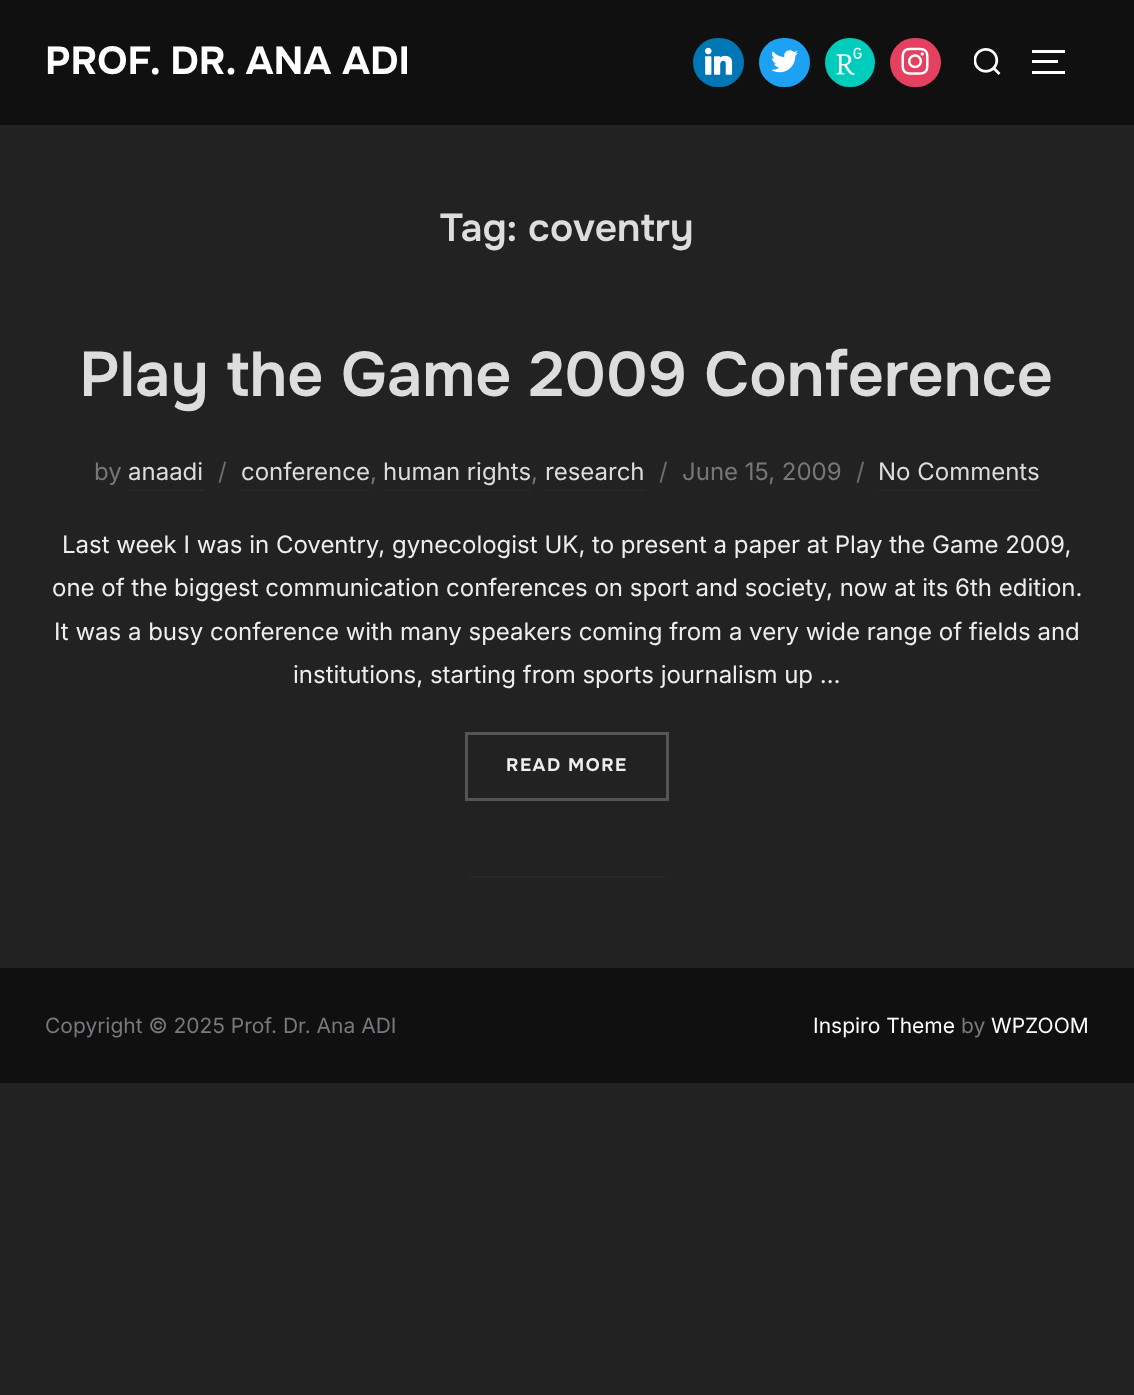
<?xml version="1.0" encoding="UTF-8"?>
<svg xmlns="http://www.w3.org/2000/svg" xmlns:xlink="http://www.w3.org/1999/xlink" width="1134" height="1395">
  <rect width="100%" height="100%" fill="#222222" />
  <rect width="1134" height="125" fill="#101010" />
  <rect x="693" y="38" width="51" height="49" rx="24.5" fill="#0077b5" />
  <image x="705" y="47" width="28" height="28" xlink:href="image1.png" />
  <rect x="759" y="38" width="51" height="49" rx="24.5" fill="#1da1f2" />
  <image x="771" y="50" width="27" height="23" xlink:href="image2.png" />
  <rect x="825" y="38" width="50" height="49" rx="24.5" fill="#00ccbb" />
  <image x="836" y="47" width="26" height="28" xlink:href="image3.png" />
  <rect x="890" y="38" width="51" height="49" rx="24.5" fill="#e4405f" />
  <image x="901" y="47" width="28" height="28" xlink:href="image4.png" />
  <image x="974" y="48" width="27" height="27" xlink:href="image5.png" />
  <rect x="1032" y="50" width="33" height="3" fill="#ffffff" />
  <rect x="1032" y="60" width="26" height="3" fill="#ffffff" />
  <rect x="1032" y="71" width="33" height="3" fill="#ffffff" />
  <rect x="129" y="489" width="75" height="2" fill="#282828" />
  <rect x="240" y="489" width="129" height="2" fill="#282828" />
  <rect x="384" y="489" width="147" height="2" fill="#282828" />
  <rect x="545" y="489" width="100" height="2" fill="#282828" />
  <rect x="879" y="489" width="161" height="2" fill="#282828" />
  <rect x="466.5" y="733.5" width="201" height="66" fill="none" stroke="#555555" stroke-width="3" />
  <rect x="470" y="876" width="195" height="2" fill="#282828" />
  <rect y="968" width="1134" height="115" fill="#101010" />
  <text x="45" y="74" style="font-family: Onest; font-size: 39px; font-weight: bold; fill: #ffffff">PROF. DR. ANA ADI</text>
  <text x="440" y="241" style="font-family: Onest; font-size: 39px; font-weight: 600; fill: #dddddd">Tag: coventry</text>
  <text x="79" y="396" style="font-family: Onest; font-size: 63px; font-weight: 600; fill: #dddddd">Play the Game 2009 Conference</text>
  <text x="94" y="480" style="font-family: Inter; font-size: 24px; fill: #777777">by</text>
  <text x="128" y="480" style="font-family: Inter; font-size: 24px; fill: #dddddd">anaadi</text>
  <text x="218" y="480" style="font-family: Inter; font-size: 24px; fill: #6c6e6f">/</text>
  <text x="241" y="480" style="font-family: Inter; font-size: 24px; fill: #dddddd">conference</text>
  <text x="370" y="480" style="font-family: Inter; font-size: 24px; fill: #777777">,</text>
  <text x="383" y="480" style="font-family: Inter; font-size: 24px; fill: #dddddd">human rights</text>
  <text x="531" y="480" style="font-family: Inter; font-size: 24px; fill: #777777">,</text>
  <text x="545" y="480" style="font-family: Inter; font-size: 24px; fill: #dddddd">research</text>
  <text x="659" y="480" style="font-family: Inter; font-size: 24px; fill: #6c6e6f">/</text>
  <text x="682" y="480" style="font-family: Inter; font-size: 24px; fill: #777777">June 15, 2009</text>
  <text x="856" y="480" style="font-family: Inter; font-size: 24px; fill: #6c6e6f">/</text>
  <text x="878" y="480" style="font-family: Inter; font-size: 24px; fill: #dddddd">No Comments</text>
  <text x="62" y="553" style="font-family: Inter; font-size: 24px; fill: #eeeeee">Last week I was in Coventry, gynecologist UK, to present a paper at Play the Game 2009,</text>
  <text x="52" y="596" style="font-family: Inter; font-size: 24px; fill: #eeeeee">one of the biggest communication conferences on sport and society, now at its 6th edition.</text>
  <text x="54" y="640" style="font-family: Inter; font-size: 24px; fill: #eeeeee">It was a busy conference with many speakers coming from a very wide range of fields and</text>
  <text x="293" y="683" style="font-family: Inter; font-size: 24px; fill: #eeeeee">institutions, starting from sports journalism up …</text>
  <text x="506" y="771" style="font-family: Onest; font-size: 18px; font-weight: bold; letter-spacing: 1.5px; fill: #eeeeee">READ MORE</text>
  <text x="45" y="1033" style="font-family: Inter; font-size: 21px; fill: #78787f">Copyright © 2025 Prof. Dr. Ana ADI</text>
  <text x="813" y="1033" style="font-family: Inter; font-size: 21px; fill: #ffffff">Inspiro Theme</text>
  <text x="961" y="1033" style="font-family: Inter; font-size: 21px; fill: #78787f">by</text>
  <text x="991" y="1033" style="font-family: Inter; font-size: 21px; fill: #ffffff">WPZOOM</text>
</svg>
